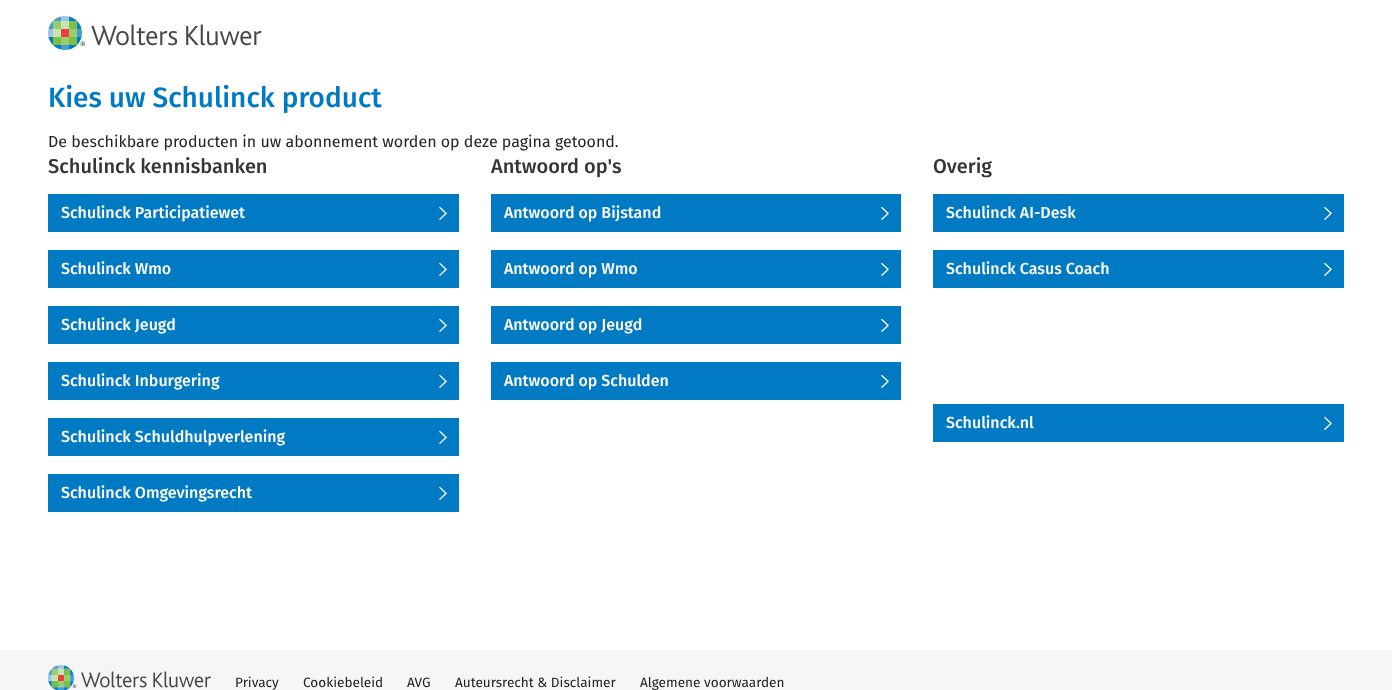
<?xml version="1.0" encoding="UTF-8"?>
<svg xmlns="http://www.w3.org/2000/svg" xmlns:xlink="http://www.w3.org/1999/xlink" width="1392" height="690">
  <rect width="100%" height="100%" fill="#ffffff" />
  <image x="48" y="16" width="214" height="34" xlink:href="image1.png" />
  <rect x="48" y="194" width="411" height="38" fill="#007ac3" />
  <image x="439" y="206" width="8" height="14" xlink:href="image2.png" />
  <rect x="48" y="250" width="411" height="38" fill="#007ac3" />
  <image x="439" y="262" width="8" height="14" xlink:href="image2.png" />
  <rect x="48" y="306" width="411" height="38" fill="#007ac3" />
  <image x="439" y="318" width="8" height="14" xlink:href="image2.png" />
  <rect x="48" y="362" width="411" height="38" fill="#007ac3" />
  <image x="439" y="374" width="8" height="14" xlink:href="image2.png" />
  <rect x="48" y="418" width="411" height="38" fill="#007ac3" />
  <image x="439" y="430" width="8" height="14" xlink:href="image2.png" />
  <rect x="48" y="474" width="411" height="38" fill="#007ac3" />
  <image x="439" y="486" width="8" height="14" xlink:href="image2.png" />
  <rect x="491" y="194" width="410" height="38" fill="#007ac3" />
  <image x="881" y="206" width="8" height="14" xlink:href="image2.png" />
  <rect x="491" y="250" width="410" height="38" fill="#007ac3" />
  <image x="881" y="262" width="8" height="14" xlink:href="image2.png" />
  <rect x="491" y="306" width="410" height="38" fill="#007ac3" />
  <image x="881" y="318" width="8" height="14" xlink:href="image2.png" />
  <rect x="491" y="362" width="410" height="38" fill="#007ac3" />
  <image x="881" y="374" width="8" height="14" xlink:href="image2.png" />
  <rect x="933" y="194" width="411" height="38" fill="#007ac3" />
  <image x="1324" y="206" width="8" height="14" xlink:href="image2.png" />
  <rect x="933" y="250" width="411" height="38" fill="#007ac3" />
  <image x="1324" y="262" width="8" height="14" xlink:href="image2.png" />
  <rect x="933" y="404" width="411" height="38" fill="#007ac3" />
  <image x="1324" y="416" width="8" height="14" xlink:href="image2.png" />
  <rect y="650" width="1392" height="40" fill="#f6f6f6" />
  <image x="48" y="665" width="163" height="25" xlink:href="image3.png" />
  <text x="48" y="107" style="font-family: Fira Sans; font-size: 28px; font-weight: 500; fill: #007ac3">Kies uw Schulinck product</text>
  <text x="48" y="147" style="font-family: Fira Sans; font-size: 16px; fill: #232323">De beschikbare producten in uw abonnement worden op deze pagina getoond.</text>
  <text x="48" y="173" style="font-family: Fira Sans; font-size: 20px; font-weight: 500; fill: #353535">Schulinck kennisbanken</text>
  <text x="61" y="218" style="font-family: Fira Sans; font-size: 16px; font-weight: 500; fill: #ffffff">Schulinck Participatiewet</text>
  <text x="61" y="274" style="font-family: Fira Sans; font-size: 16px; font-weight: 500; fill: #ffffff">Schulinck Wmo</text>
  <text x="61" y="330" style="font-family: Fira Sans; font-size: 16px; font-weight: 500; fill: #ffffff">Schulinck Jeugd</text>
  <text x="61" y="386" style="font-family: Fira Sans; font-size: 16px; font-weight: 500; fill: #ffffff">Schulinck Inburgering</text>
  <text x="61" y="442" style="font-family: Fira Sans; font-size: 16px; font-weight: 500; fill: #ffffff">Schulinck Schuldhulpverlening</text>
  <text x="61" y="498" style="font-family: Fira Sans; font-size: 16px; font-weight: 500; fill: #ffffff">Schulinck Omgevingsrecht</text>
  <text x="491" y="173" style="font-family: Fira Sans; font-size: 20px; font-weight: 500; fill: #353535">Antwoord op's</text>
  <text x="504" y="218" style="font-family: Fira Sans; font-size: 16px; font-weight: 500; fill: #ffffff">Antwoord op Bijstand</text>
  <text x="504" y="274" style="font-family: Fira Sans; font-size: 16px; font-weight: 500; fill: #ffffff">Antwoord op Wmo</text>
  <text x="504" y="330" style="font-family: Fira Sans; font-size: 16px; font-weight: 500; fill: #ffffff">Antwoord op Jeugd</text>
  <text x="504" y="386" style="font-family: Fira Sans; font-size: 16px; font-weight: 500; fill: #ffffff">Antwoord op Schulden</text>
  <text x="933" y="173" style="font-family: Fira Sans; font-size: 20px; font-weight: 500; fill: #353535">Overig</text>
  <text x="946" y="218" style="font-family: Fira Sans; font-size: 16px; font-weight: 500; fill: #ffffff">Schulinck AI-Desk</text>
  <text x="946" y="274" style="font-family: Fira Sans; font-size: 16px; font-weight: 500; fill: #ffffff">Schulinck Casus Coach</text>
  <text x="946" y="428" style="font-family: Fira Sans; font-size: 16px; font-weight: 500; fill: #ffffff">Schulinck.nl</text>
  <text x="235" y="687" style="font-family: Fira Sans; font-size: 13.6px; fill: #232323">Privacy</text>
  <text x="303" y="687" style="font-family: Fira Sans; font-size: 13.6px; fill: #232323">Cookiebeleid</text>
  <text x="407" y="687" style="font-family: Fira Sans; font-size: 13.6px; fill: #232323">AVG</text>
  <text x="455" y="687" style="font-family: Fira Sans; font-size: 13.6px; fill: #232323">Auteursrecht &amp; Disclaimer</text>
  <text x="640" y="687" style="font-family: Fira Sans; font-size: 13.6px; fill: #232323">Algemene voorwaarden</text>
</svg>
